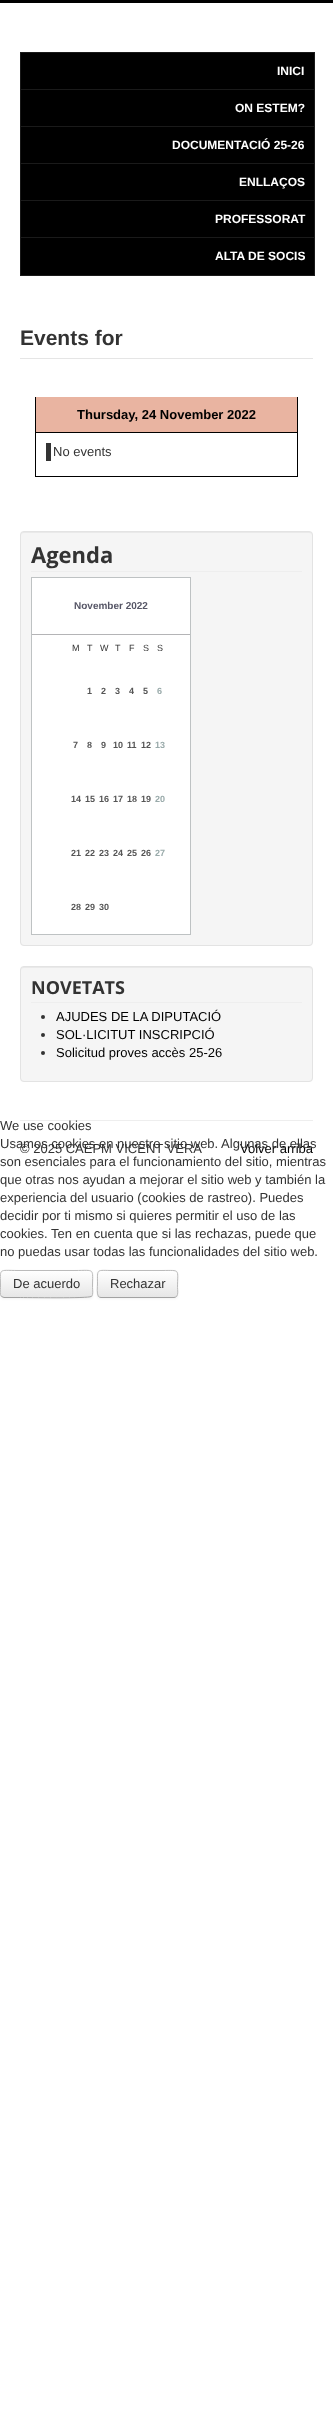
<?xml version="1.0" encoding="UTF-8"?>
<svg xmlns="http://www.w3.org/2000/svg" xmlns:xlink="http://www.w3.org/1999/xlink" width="333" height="2415">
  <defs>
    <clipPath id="clip1"><rect y="1270" width="93" height="28" rx="4" /></clipPath>
    <linearGradient id="g1" gradientUnits="userSpaceOnUse" x1="47" y1="1271" x2="47" y2="1297"><stop offset="0" stop-color="#ffffff" /><stop offset="1" stop-color="#e6e6e6" /></linearGradient>
    <clipPath id="clip2"><rect x="97" y="1270" width="81" height="28" rx="4" /></clipPath>
    <linearGradient id="g2" gradientUnits="userSpaceOnUse" x1="138" y1="1271" x2="138" y2="1297"><stop offset="0" stop-color="#ffffff" /><stop offset="1" stop-color="#e6e6e6" /></linearGradient>
  </defs>
  <rect width="100%" height="100%" fill="#ffffff" />
  <rect width="333" height="3" fill="#000000" />
  <rect x="20.5" y="52.5" width="294" height="223" fill="#000000" stroke="#1a1a1a" />
  <rect x="21" y="89" width="293" height="1" fill="#1a1a1a" />
  <rect x="21" y="126" width="293" height="1" fill="#1a1a1a" />
  <rect x="21" y="163" width="293" height="1" fill="#1a1a1a" />
  <rect x="21" y="200" width="293" height="1" fill="#1a1a1a" />
  <rect x="21" y="237" width="293" height="1" fill="#1a1a1a" />
  <rect x="20" y="358" width="293" height="1" fill="#e5e5e5" />
  <rect x="297" y="397" width="1" height="80" fill="#000000" />
  <rect x="35" y="476" width="263" height="1" fill="#000000" />
  <rect x="35" y="397" width="1" height="80" fill="#000000" />
  <rect x="36" y="397" width="261" height="35" fill="#e9b4a1" />
  <rect x="35" y="432" width="263" height="1" fill="#000000" />
  <rect x="46" y="443" width="5" height="18" fill="#333333" />
  <rect x="20" y="531" width="293" height="415" rx="4" fill="#f5f5f5" />
  <path d="M 24 533 h 285 c 2 0 3 1 3 3 c 0 -2 -1 -4 -3 -4 h -285 c -2 0 -3 2 -3 4 c 0 -2 1 -3 3 -3 z" fill="#e9e9e9" />
  <rect x="20.5" y="531.5" width="292" height="414" rx="3.5" fill="none" stroke="#e3e3e3" />
  <rect x="31" y="571" width="271" height="1" fill="#eeeeee" />
  <rect x="32" y="578" width="158" height="356" fill="#ffffff" />
  <rect x="31" y="577" width="160" height="1" fill="#bec2c3" />
  <rect x="190" y="577" width="1" height="358" fill="#bec2c3" />
  <rect x="31" y="934" width="160" height="1" fill="#bec2c3" />
  <rect x="31" y="577" width="1" height="358" fill="#bec2c3" />
  <rect x="32" y="634" width="158" height="1" fill="#b4b4b6" />
  <rect x="20" y="966" width="293" height="116" rx="4" fill="#f5f5f5" />
  <path d="M 24 968 h 285 c 2 0 3 1 3 3 c 0 -2 -1 -4 -3 -4 h -285 c -2 0 -3 2 -3 4 c 0 -2 1 -3 3 -3 z" fill="#e9e9e9" />
  <rect x="20.5" y="966.5" width="292" height="115" rx="3.5" fill="none" stroke="#e3e3e3" />
  <rect x="31" y="1002" width="271" height="1" fill="#eeeeee" />
  <circle cx="43" cy="1017" r="2" fill="#333333" />
  <circle cx="43" cy="1035" r="2" fill="#333333" />
  <circle cx="43" cy="1053" r="2" fill="#333333" />
  <rect y="1271" width="93" height="28" rx="4" fill="#000000" fill-opacity="0.05" filter="blur(1px)" />
  <rect y="1270" width="93" height="28" rx="4" fill="#f5f5f5" />
  <g clip-path="url(#clip1)">
    <rect y="1271" width="93" height="26" fill="url(#g1)" />
  </g>
  <path d="M 91.5 1296.5 h -0.5 c -2 2 -64.5 1 -73 1 h -14 l -2.5 -1" fill="none" stroke="#a2a2a2" />
  <path d="M 1.5 1296.5 c -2 -2 -1 -6.5 -1 -9 c 0 -20 -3 -17 17.5 -17 h 57 c 20.5 0 17.5 -3 17.5 17 c 0 2.5 1 7 -1 9" fill="none" stroke="#bbbbbb" />
  <rect x="97" y="1271" width="81" height="28" rx="4" fill="#000000" fill-opacity="0.05" filter="blur(1px)" />
  <rect x="97" y="1270" width="81" height="28" rx="4" fill="#f5f5f5" />
  <g clip-path="url(#clip2)">
    <rect x="97" y="1271" width="81" height="26" fill="url(#g2)" />
  </g>
  <path d="M 176.5 1296.5 c -0.5 0.5 -1.5 1 -2.5 1 h -73 c -1 0 -2 -0.5 -2.5 -1" fill="none" stroke="#a2a2a2" />
  <path d="M 98.5 1296.5 c -2 -2.5 -1 -10 -1 -12.5 c 0 -16 -1.5 -13.5 15.5 -13.5 h 49 c 19 0 15.5 -2 15.5 17 c 0 2.5 1 7 -1 9" fill="none" stroke="#bbbbbb" />
  <rect x="20" y="1120" width="293" height="1" fill="#eeeeee" />
  <text x="277" y="75" style="font-family: Liberation Sans; font-size: 12px; font-weight: bold; fill: #ffffff">INICI</text>
  <text x="235" y="112" style="font-family: Liberation Sans; font-size: 12px; font-weight: bold; fill: #ffffff">ON ESTEM?</text>
  <text x="172" y="149" style="font-family: Liberation Sans; font-size: 12px; font-weight: bold; fill: #ffffff">DOCUMENTACIÓ 25-26</text>
  <text x="239" y="186" style="font-family: Liberation Sans; font-size: 12px; font-weight: bold; fill: #ffffff">ENLLAÇOS</text>
  <text x="215" y="223" style="font-family: Liberation Sans; font-size: 12px; font-weight: bold; fill: #ffffff">PROFESSORAT</text>
  <text x="215" y="260" style="font-family: Liberation Sans; font-size: 12px; font-weight: bold; fill: #ffffff">ALTA DE SOCIS</text>
  <text x="20" y="345" style="font-family: Liberation Sans; font-size: 21px; font-weight: bold; fill: #333333">Events for</text>
  <text x="77" y="419" style="font-family: Liberation Sans; font-size: 13px; font-weight: bold; fill: #000000">Thursday, 24 November 2022</text>
  <text x="53" y="456" style="font-family: Liberation Sans; font-size: 13px; fill: #333333">No events</text>
  <text x="31" y="563" style="font-family: Open Sans; font-size: 22px; font-weight: bold; fill: #333333">Agenda</text>
  <text x="74" y="609" style="font-family: Liberation Sans; font-size: 10px; font-weight: bold; fill: #565666">November 2022</text>
  <text x="72" y="651" style="font-family: Liberation Sans; font-size: 9px; fill: #333333">M</text>
  <text x="87" y="651" style="font-family: Liberation Sans; font-size: 9px; fill: #333333">T</text>
  <text x="100" y="651" style="font-family: Liberation Sans; font-size: 9px; fill: #333333">W</text>
  <text x="115" y="651" style="font-family: Liberation Sans; font-size: 9px; fill: #333333">T</text>
  <text x="129" y="651" style="font-family: Liberation Sans; font-size: 9px; fill: #333333">F</text>
  <text x="143" y="651" style="font-family: Liberation Sans; font-size: 9px; fill: #333333">S</text>
  <text x="157" y="651" style="font-family: Liberation Sans; font-size: 9px; fill: #333333">S</text>
  <text x="87" y="694" style="font-family: Liberation Sans; font-size: 9px; font-weight: bold; fill: #555555">1</text>
  <text x="101" y="694" style="font-family: Liberation Sans; font-size: 9px; font-weight: bold; fill: #555555">2</text>
  <text x="115" y="694" style="font-family: Liberation Sans; font-size: 9px; font-weight: bold; fill: #555555">3</text>
  <text x="129" y="694" style="font-family: Liberation Sans; font-size: 9px; font-weight: bold; fill: #555555">4</text>
  <text x="143" y="694" style="font-family: Liberation Sans; font-size: 9px; font-weight: bold; fill: #555555">5</text>
  <text x="157" y="694" style="font-family: Liberation Sans; font-size: 9px; font-weight: bold; fill: #99aaaa">6</text>
  <text x="73" y="748" style="font-family: Liberation Sans; font-size: 9px; font-weight: bold; fill: #555555">7</text>
  <text x="87" y="748" style="font-family: Liberation Sans; font-size: 9px; font-weight: bold; fill: #555555">8</text>
  <text x="101" y="748" style="font-family: Liberation Sans; font-size: 9px; font-weight: bold; fill: #555555">9</text>
  <text x="113" y="748" style="font-family: Liberation Sans; font-size: 9px; font-weight: bold; fill: #555555">10</text>
  <text x="127" y="748" style="font-family: Liberation Sans; font-size: 9px; font-weight: bold; fill: #555555">11</text>
  <text x="141" y="748" style="font-family: Liberation Sans; font-size: 9px; font-weight: bold; fill: #555555">12</text>
  <text x="155" y="748" style="font-family: Liberation Sans; font-size: 9px; font-weight: bold; fill: #99aaaa">13</text>
  <text x="71" y="802" style="font-family: Liberation Sans; font-size: 9px; font-weight: bold; fill: #555555">14</text>
  <text x="85" y="802" style="font-family: Liberation Sans; font-size: 9px; font-weight: bold; fill: #555555">15</text>
  <text x="99" y="802" style="font-family: Liberation Sans; font-size: 9px; font-weight: bold; fill: #555555">16</text>
  <text x="113" y="802" style="font-family: Liberation Sans; font-size: 9px; font-weight: bold; fill: #555555">17</text>
  <text x="127" y="802" style="font-family: Liberation Sans; font-size: 9px; font-weight: bold; fill: #555555">18</text>
  <text x="141" y="802" style="font-family: Liberation Sans; font-size: 9px; font-weight: bold; fill: #555555">19</text>
  <text x="155" y="802" style="font-family: Liberation Sans; font-size: 9px; font-weight: bold; fill: #99aaaa">20</text>
  <text x="71" y="856" style="font-family: Liberation Sans; font-size: 9px; font-weight: bold; fill: #555555">21</text>
  <text x="85" y="856" style="font-family: Liberation Sans; font-size: 9px; font-weight: bold; fill: #555555">22</text>
  <text x="99" y="856" style="font-family: Liberation Sans; font-size: 9px; font-weight: bold; fill: #555555">23</text>
  <text x="113" y="856" style="font-family: Liberation Sans; font-size: 9px; font-weight: bold; fill: #555555">24</text>
  <text x="127" y="856" style="font-family: Liberation Sans; font-size: 9px; font-weight: bold; fill: #555555">25</text>
  <text x="141" y="856" style="font-family: Liberation Sans; font-size: 9px; font-weight: bold; fill: #555555">26</text>
  <text x="155" y="856" style="font-family: Liberation Sans; font-size: 9px; font-weight: bold; fill: #99aaaa">27</text>
  <text x="71" y="910" style="font-family: Liberation Sans; font-size: 9px; font-weight: bold; fill: #555555">28</text>
  <text x="85" y="910" style="font-family: Liberation Sans; font-size: 9px; font-weight: bold; fill: #555555">29</text>
  <text x="99" y="910" style="font-family: Liberation Sans; font-size: 9px; font-weight: bold; fill: #555555">30</text>
  <text x="31" y="994" style="font-family: Open Sans; font-size: 18px; font-weight: bold; fill: #333333">NOVETATS</text>
  <text x="56" y="1021" style="font-family: Liberation Sans; font-size: 13px; fill: #000000">AJUDES DE LA DIPUTACIÓ</text>
  <text x="56" y="1039" style="font-family: Liberation Sans; font-size: 13px; fill: #000000">SOL·LICITUT INSCRIPCIÓ</text>
  <text x="56" y="1057" style="font-family: Liberation Sans; font-size: 13px; fill: #000000">Solicitud proves accès 25-26</text>
  <text x="0" y="1130" style="font-family: Liberation Sans; font-size: 13px; fill: #333333">We use cookies</text>
  <text x="0" y="1166" style="font-family: Liberation Sans; font-size: 13px; fill: #333333">son esenciales para el funcionamiento del sitio, mientras</text>
  <text x="0" y="1184" style="font-family: Liberation Sans; font-size: 13px; fill: #333333">que otras nos ayudan a mejorar el sitio web y también la</text>
  <text x="0" y="1202" style="font-family: Liberation Sans; font-size: 13px; fill: #333333">experiencia del usuario (cookies de rastreo). Puedes</text>
  <text x="0" y="1220" style="font-family: Liberation Sans; font-size: 13px; fill: #333333">decidir por ti mismo si quieres permitir el uso de las</text>
  <text x="0" y="1238" style="font-family: Liberation Sans; font-size: 13px; fill: #333333">cookies. Ten en cuenta que si las rechazas, puede que</text>
  <text x="0" y="1256" style="font-family: Liberation Sans; font-size: 13px; fill: #333333">no puedas usar todas las funcionalidades del sitio web.</text>
  <text x="13" y="1288" style="font-family: Liberation Sans; font-size: 13px; fill: #333333">De acuerdo</text>
  <text x="110" y="1288" style="font-family: Liberation Sans; font-size: 13px; fill: #333333">Rechazar</text>
  <text x="20" y="1153" style="font-family: Liberation Sans; font-size: 13px; fill: #333333">© 2025 CAEPM VICENT VERA</text>
  <text x="240" y="1153" style="font-family: Liberation Sans; font-size: 13px; fill: #000000">Volver arriba</text>
  <text x="0" y="1148" style="font-family: Liberation Sans; font-size: 13px; fill: #333333">Usamos cookies en nuestro sitio web. Algunas de ellas</text>
</svg>
